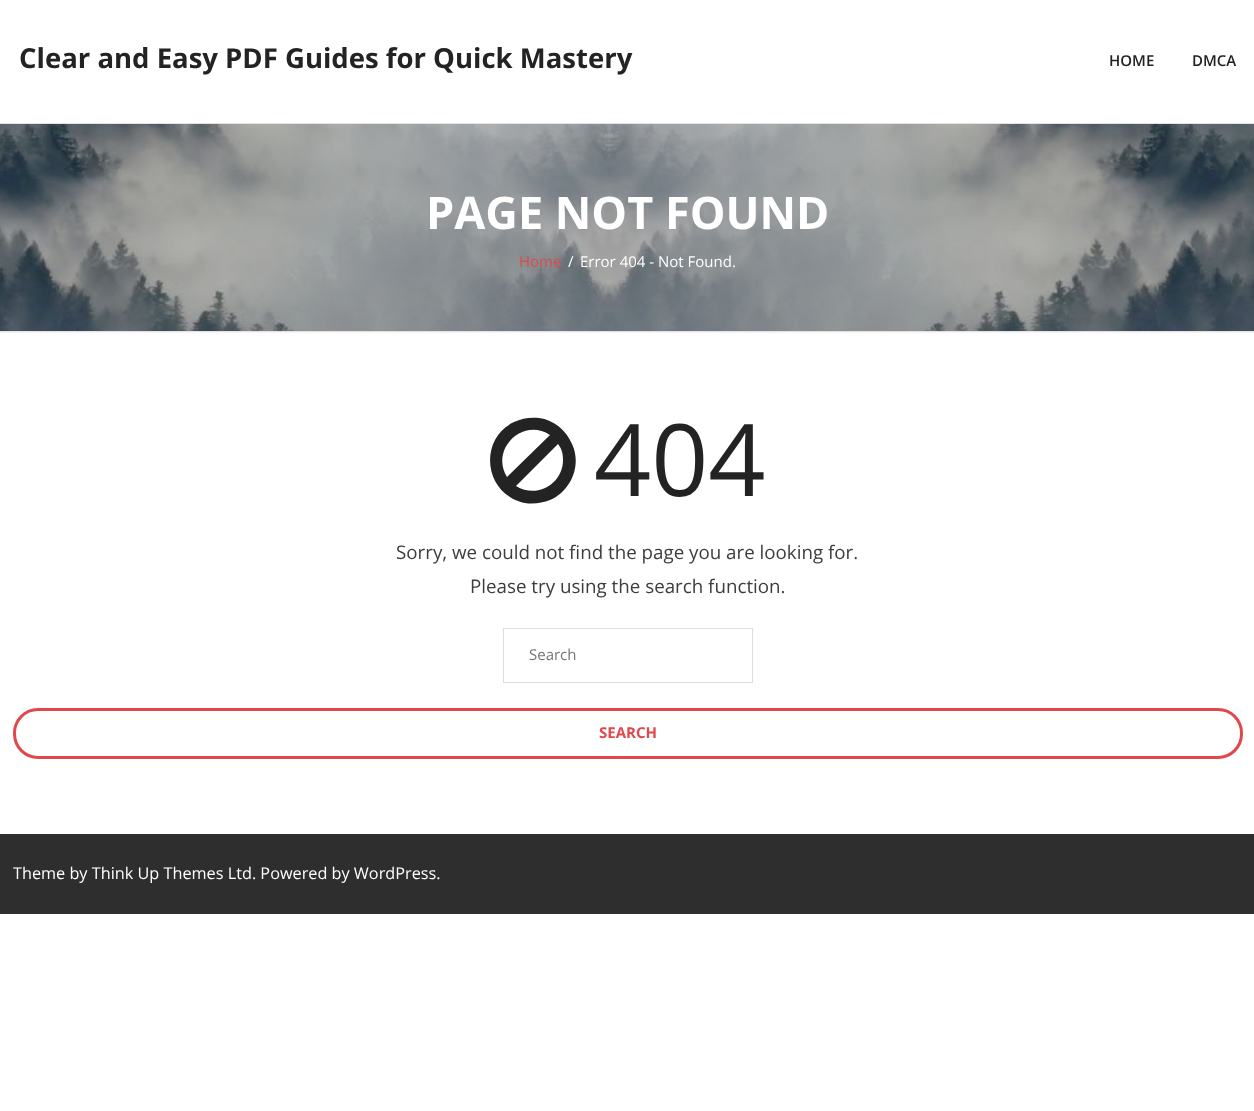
<?xml version="1.0" encoding="UTF-8"?>
<svg xmlns="http://www.w3.org/2000/svg" xmlns:xlink="http://www.w3.org/1999/xlink" width="1254" height="1111">
  <rect width="100%" height="100%" fill="#ffffff" />
  <rect y="123" width="1254" height="1" fill="#e3e3e3" />
  <rect y="332" width="1254" height="1" fill="#f5f5f5" />
  <image x="0" y="124" width="1254" height="207" xlink:href="image1.png" />
  <rect y="331" width="1254" height="1" fill="#e3e3e3" />
  <path d="M 563 460 c 0 -6 -1 -11 -5 -16 l -42 42 c 21 13 47 -2 47 -26 z m -56 17 l 43 -42 c -28 -18 -60 15 -43 42 z m 65 -33 c 10 21 -1 47 -22 56 c -10 4 -22 5 -32 1 c -35 -13 -38 -63 -4 -79 c 8 -4 17 -5 25 -4 c 15 2 27 12 33 26 z" fill="#232323" />
  <rect x="503.5" y="628.5" width="249" height="54" fill="none" stroke="#dddddd" />
  <rect x="14.5" y="709.5" width="1227" height="48" rx="23.5" fill="none" stroke="#e0484c" stroke-width="3" />
  <rect y="834" width="1254" height="80" fill="#2e2e2e" />
  <text x="19" y="68" style="font-family: Open Sans; font-size: 27.5px; font-weight: bold; fill: #232323">Clear and Easy PDF Guides for Quick Mastery</text>
  <text x="1109" y="66" style="font-family: Open Sans; font-size: 15px; font-weight: 600; fill: #232323">HOME</text>
  <text x="1192" y="66" style="font-family: Open Sans; font-size: 15px; font-weight: 600; fill: #232323">DMCA</text>
  <text x="426" y="229" style="font-family: Open Sans; font-size: 45px; font-weight: bold; fill: #ffffff">PAGE NOT FOUND</text>
  <text x="519" y="267" style="font-family: Open Sans; font-size: 15px; fill: #e0484c">Home</text>
  <text x="568" y="267" style="font-family: Open Sans; font-size: 15px; fill: #ffffff">/</text>
  <text x="580" y="267" style="font-family: Open Sans; font-size: 15px; fill: #ffffff">Error 404 - Not Found.</text>
  <text x="594" y="496" style="font-family: Open Sans; font-size: 100px; fill: #232323">404</text>
  <text x="396" y="559" style="font-family: Open Sans; font-size: 18.75px; fill: #3d3d3d">Sorry, we could not find the page you are looking for.</text>
  <text x="470" y="593" style="font-family: Open Sans; font-size: 18.75px; fill: #3d3d3d">Please try using the search function.</text>
  <text x="529" y="660" style="font-family: Open Sans; font-size: 15px; fill: #757575">Search</text>
  <text x="599" y="738" style="font-family: Open Sans; font-size: 15px; font-weight: bold; fill: #e0484c">SEARCH</text>
  <text x="13" y="879" style="font-family: Open Sans; font-size: 16.25px; fill: #ffffff">Theme by Think Up Themes Ltd. Powered by WordPress.</text>
</svg>
